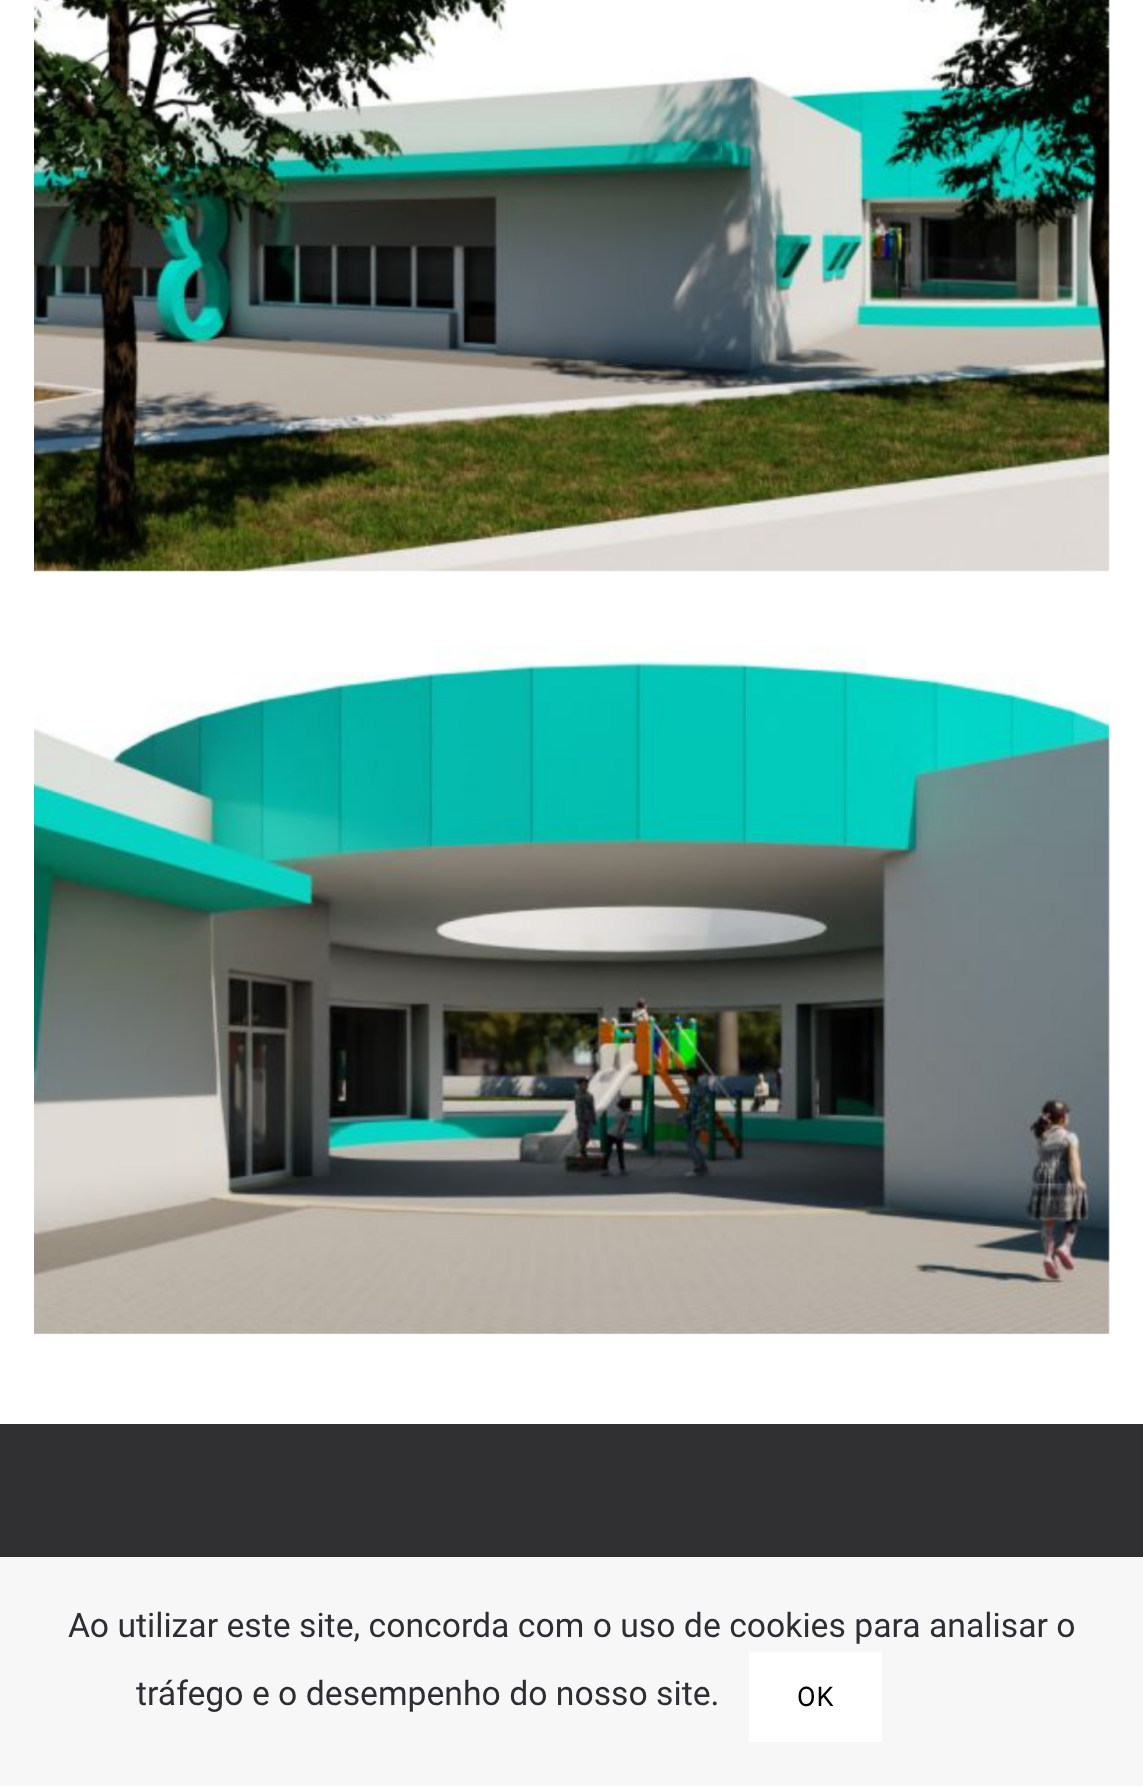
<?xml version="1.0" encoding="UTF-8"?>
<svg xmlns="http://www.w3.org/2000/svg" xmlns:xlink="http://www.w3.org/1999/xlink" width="1143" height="1786">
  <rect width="100%" height="100%" fill="#ffffff" />
  <image x="34" y="0" width="1076" height="572" xlink:href="image1.png" />
  <image x="34" y="645" width="1076" height="690" xlink:href="image2.png" />
  <rect y="1424" width="1143" height="133" fill="#303033" />
  <rect y="1557" width="1143" height="229" fill="#f7f7f7" />
  <rect x="749" y="1652" width="133" height="90" fill="#ffffff" />
  <text x="68" y="1637" style="font-family: Roboto; font-size: 33.75px; fill: #2d2e33">Ao utilizar este site, concorda com o uso de cookies para analisar o</text>
  <text x="136" y="1705" style="font-family: Roboto; font-size: 33.75px; fill: #2d2e33">tráfego e o desempenho do nosso site.</text>
  <text x="797" y="1706" style="font-family: Roboto; font-size: 27px; letter-spacing: 1px; fill: #000000">OK</text>
</svg>
